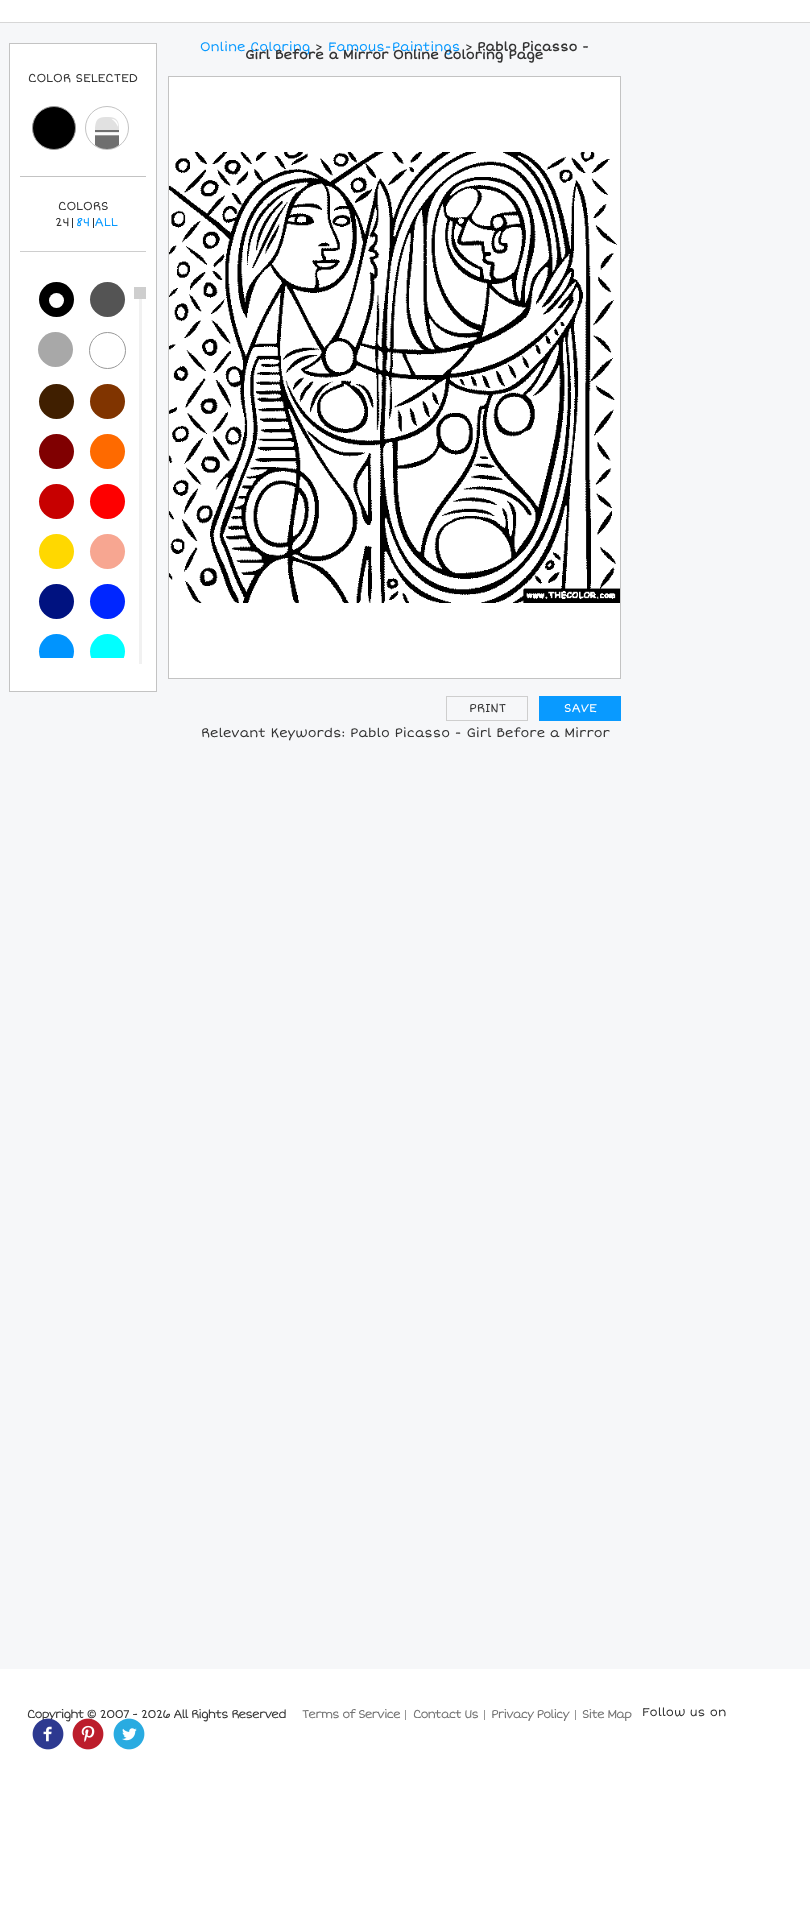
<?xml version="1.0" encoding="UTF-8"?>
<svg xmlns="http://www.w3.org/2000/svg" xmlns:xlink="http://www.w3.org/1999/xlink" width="810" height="1930">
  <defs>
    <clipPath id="clip1"><rect x="20" y="252" width="123" height="406" /></clipPath>
  </defs>
  <rect width="100%" height="100%" fill="#ffffff" />
  <rect y="23" width="810" height="1646" fill="#f6f7f9" />
  <rect y="22" width="810" height="1" fill="#d7d7d7" />
  <rect x="9.5" y="43.5" width="147" height="648" fill="#ffffff" stroke="#c3c3c3" />
  <rect x="20" y="176" width="126" height="1" fill="#c3c3c3" />
  <circle cx="54" cy="128" r="21.5" fill="#000000" stroke="#999999" />
  <circle cx="107" cy="128" r="21.5" fill="none" stroke="#c3c3c3" />
  <image x="95" y="117" width="24" height="32" xlink:href="image1.png" />
  <rect x="20" y="251" width="126" height="1" fill="#cecece" />
  <rect x="72" y="218" width="1" height="10" fill="#333333" />
  <circle cx="56.5" cy="299.5" r="17.5" fill="#000000" />
  <circle cx="56.5" cy="300.5" r="7.5" fill="#ffffff" />
  <circle cx="107.5" cy="299.5" r="17.5" fill="#545454" />
  <circle cx="55.5" cy="349.5" r="17.5" fill="#a8a8a8" />
  <circle cx="107.5" cy="350.5" r="18" fill="none" stroke="#999999" />
  <circle cx="56.5" cy="401.5" r="17.5" fill="#401f00" />
  <circle cx="107.5" cy="401.5" r="17.5" fill="#803400" />
  <circle cx="56.5" cy="451.5" r="17.5" fill="#800001" />
  <circle cx="107.5" cy="451.5" r="17.5" fill="#fe6a00" />
  <circle cx="56.5" cy="501.5" r="17.5" fill="#c70000" />
  <circle cx="107.5" cy="501.5" r="17.5" fill="#fe0000" />
  <circle cx="56.5" cy="551.5" r="17.5" fill="#ffd800" />
  <circle cx="107.5" cy="551.5" r="17.5" fill="#f7a691" />
  <circle cx="56.5" cy="601.5" r="17.5" fill="#001280" />
  <circle cx="107.5" cy="601.5" r="17.5" fill="#0026ff" />
  <g clip-path="url(#clip1)">
    <circle cx="56.5" cy="651.5" r="17.5" fill="#0094fe" />
    <circle cx="107.5" cy="651.5" r="17.5" fill="#01ffff" />
  </g>
  <rect x="139" y="299" width="3" height="365" fill="#f1f1f1" />
  <rect x="134" y="287" width="12" height="12" fill="#cecece" />
  <rect x="168.5" y="76.5" width="452" height="602" fill="#ffffff" stroke="#c3c3c3" />
  <image x="169" y="152" width="451" height="451" xlink:href="image2.png" />
  <rect x="446.5" y="696.5" width="81" height="24" fill="none" stroke="#cecece" />
  <rect x="539" y="696" width="82" height="25" fill="#099aff" />
  <rect x="405" y="1710" width="1" height="10" fill="#979797" />
  <rect x="484" y="1710" width="1" height="10" fill="#979797" />
  <rect x="575" y="1710" width="1" height="10" fill="#979797" />
  <text x="28" y="82" style="font-family: Short Stack; font-size: 12px; fill: #333333">COLOR SELECTED</text>
  <text x="58" y="210" style="font-family: Short Stack; font-size: 12px; fill: #333333">COLORS</text>
  <text x="55" y="226" style="font-family: Short Stack; font-size: 12px; fill: #333333">24</text>
  <text x="76" y="226" style="font-family: Short Stack; font-size: 12px; fill: #099aff">84 ALL</text>
  <rect x="93" y="218" width="1" height="10" fill="#333333" />
  <text x="200" y="51" style="font-family: Short Stack; font-size: 13px; fill: #099aff">Online Coloring</text>
  <text x="315" y="51" style="font-family: Short Stack; font-size: 13px; fill: #333333">&gt;</text>
  <text x="328" y="51" style="font-family: Short Stack; font-size: 13px; fill: #099aff">Famous-Paintings</text>
  <text x="465" y="51" style="font-family: Short Stack; font-size: 13px; fill: #333333">&gt;</text>
  <text x="477" y="51" style="font-family: Short Stack; font-size: 13px; font-weight: bold; fill: #333333">Pablo Picasso -</text>
  <text x="245" y="59" style="font-family: Short Stack; font-size: 13px; font-weight: bold; fill: #333333">Girl Before a Mirror Online Coloring Page</text>
  <text x="469" y="712" style="font-family: Short Stack; font-size: 12px; fill: #333333">PRINT</text>
  <text x="564" y="712" style="font-family: Short Stack; font-size: 12px; fill: #ffffff">SAVE</text>
  <text x="201" y="737" style="font-family: Short Stack; font-size: 13px; fill: #333333">Relevant Keywords: Pablo Picasso - Girl Before a Mirror</text>
  <text x="27" y="1718" style="font-family: Short Stack; font-size: 12px; letter-spacing: -1px; fill: #333333">Copyright © 2007 - 2026 All Rights Reserved</text>
  <text x="302" y="1718" style="font-family: Short Stack; font-size: 12px; letter-spacing: -1px; fill: #747474">Terms of Service</text>
  <text x="413" y="1718" style="font-family: Short Stack; font-size: 12px; letter-spacing: -1px; fill: #747474">Contact Us</text>
  <text x="491" y="1718" style="font-family: Short Stack; font-size: 12px; letter-spacing: -1px; fill: #747474">Privacy Policy</text>
  <text x="582" y="1718" style="font-family: Short Stack; font-size: 12px; letter-spacing: -1px; fill: #747474">Site Map</text>
  <text x="642" y="1716" style="font-family: Short Stack; font-size: 12px; fill: #333333">Follow us on</text>
  <image x="32" y="1718" width="32" height="32" xlink:href="image3.png" />
  <image x="72" y="1718" width="32" height="32" xlink:href="image4.png" />
  <image x="113" y="1718" width="32" height="32" xlink:href="image5.png" />
</svg>
